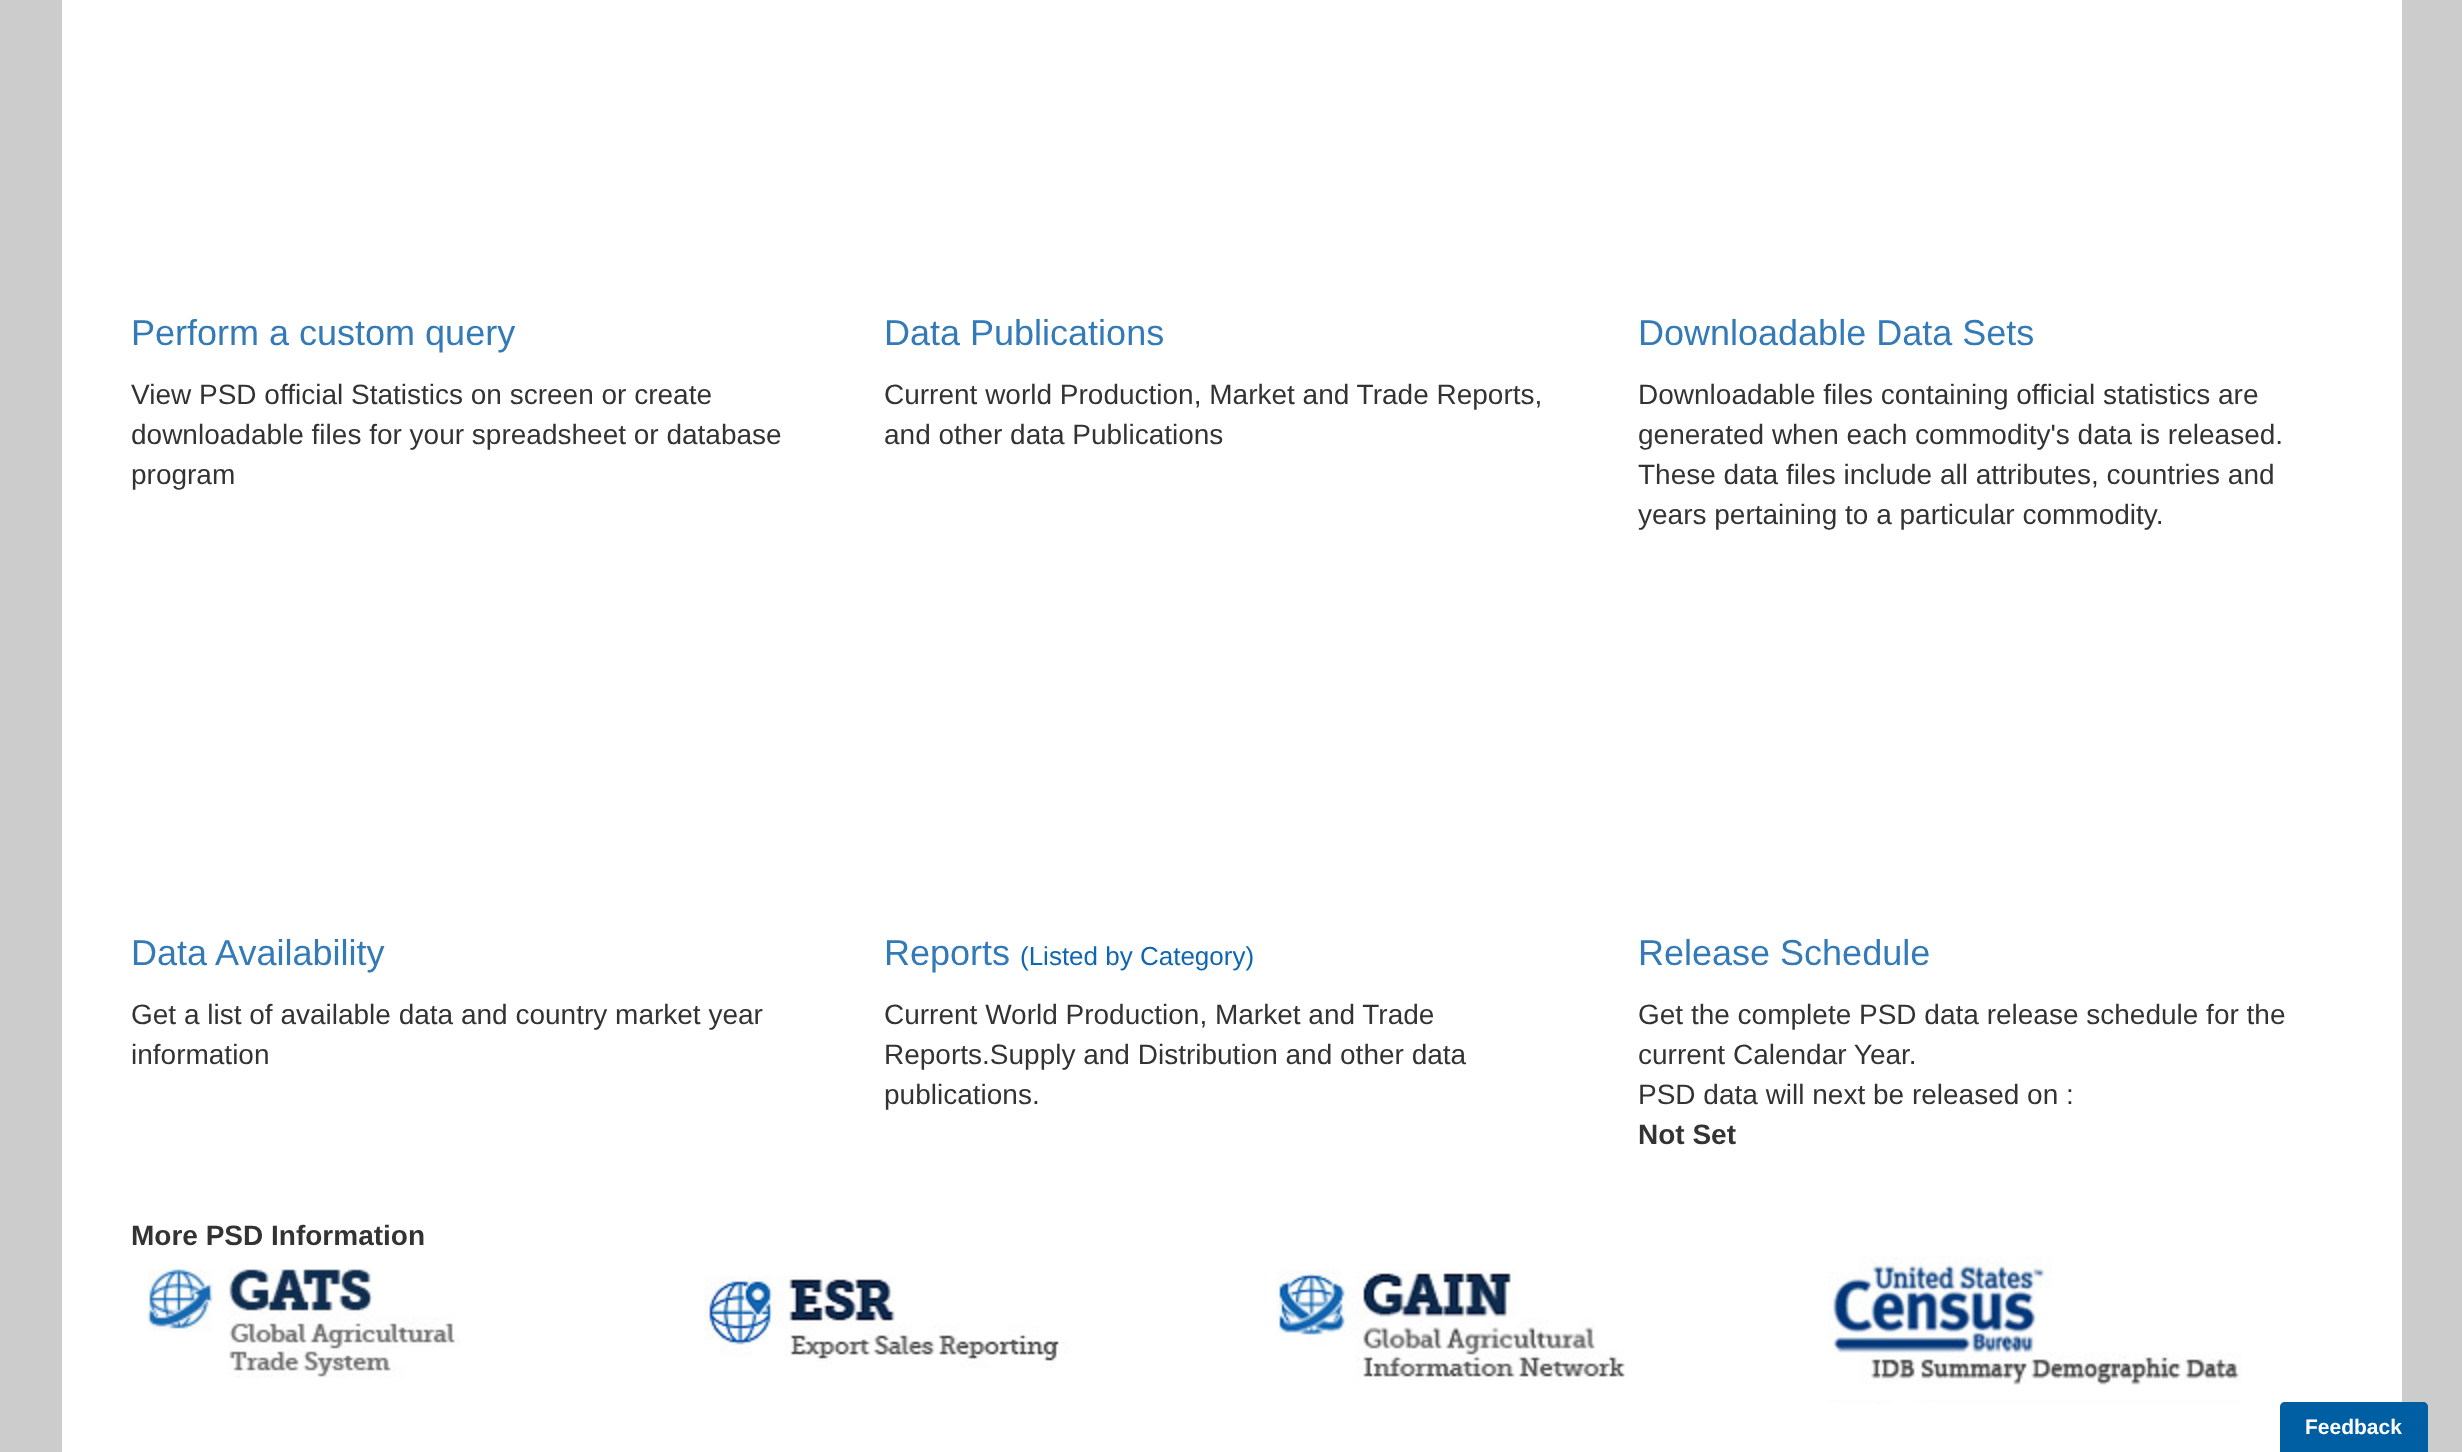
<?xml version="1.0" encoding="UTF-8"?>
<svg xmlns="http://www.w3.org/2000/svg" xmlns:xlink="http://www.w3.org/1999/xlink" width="2462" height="1452">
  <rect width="100%" height="100%" fill="#cccccc" />
  <rect x="62" width="2340" height="1452" fill="#ffffff" />
  <image x="147" y="1268" width="313" height="110" xlink:href="image1.png" />
  <image x="704" y="1276" width="366" height="92" xlink:href="image2.png" />
  <image x="1276" y="1269" width="349" height="111" xlink:href="image3.png" />
  <image x="1828" y="1256" width="414" height="148" xlink:href="image4.png" />
  <path d="M 2285 1402 h 138 c 3 0 5 2 5 5 v 45 h -148 v -45 c 0 -3 2 -5 5 -5 z" fill="#005ea2" />
  <text x="131" y="345" style="font-family: Liberation Sans; font-size: 36px; fill: #337ab7">Perform a custom query</text>
  <text x="131" y="404" style="font-family: Liberation Sans; font-size: 28px; fill: #333333">View PSD official Statistics on screen or create</text>
  <text x="131" y="444" style="font-family: Liberation Sans; font-size: 28px; fill: #333333">downloadable files for your spreadsheet or database</text>
  <text x="131" y="484" style="font-family: Liberation Sans; font-size: 28px; fill: #333333">program</text>
  <text x="884" y="345" style="font-family: Liberation Sans; font-size: 36px; fill: #337ab7">Data Publications</text>
  <text x="884" y="404" style="font-family: Liberation Sans; font-size: 28px; fill: #333333">Current world Production, Market and Trade Reports,</text>
  <text x="884" y="444" style="font-family: Liberation Sans; font-size: 28px; fill: #333333">and other data Publications</text>
  <text x="1638" y="345" style="font-family: Liberation Sans; font-size: 36px; fill: #337ab7">Downloadable Data Sets</text>
  <text x="1638" y="404" style="font-family: Liberation Sans; font-size: 28px; fill: #333333">Downloadable files containing official statistics are</text>
  <text x="1638" y="444" style="font-family: Liberation Sans; font-size: 28px; fill: #333333">generated when each commodity's data is released.</text>
  <text x="1638" y="484" style="font-family: Liberation Sans; font-size: 28px; fill: #333333">These data files include all attributes, countries and</text>
  <text x="1638" y="524" style="font-family: Liberation Sans; font-size: 28px; fill: #333333">years pertaining to a particular commodity.</text>
  <text x="131" y="965" style="font-family: Liberation Sans; font-size: 36px; fill: #337ab7">Data Availability</text>
  <text x="131" y="1024" style="font-family: Liberation Sans; font-size: 28px; fill: #333333">Get a list of available data and country market year</text>
  <text x="131" y="1064" style="font-family: Liberation Sans; font-size: 28px; fill: #333333">information</text>
  <text x="884" y="965" style="font-family: Liberation Sans; font-size: 36px; fill: #337ab7">Reports</text>
  <text x="1020" y="965" style="font-family: Liberation Sans; font-size: 26px; fill: #0e67b0">(Listed by Category)</text>
  <text x="884" y="1024" style="font-family: Liberation Sans; font-size: 28px; fill: #333333">Current World Production, Market and Trade</text>
  <text x="884" y="1064" style="font-family: Liberation Sans; font-size: 28px; fill: #333333">Reports.Supply and Distribution and other data</text>
  <text x="884" y="1104" style="font-family: Liberation Sans; font-size: 28px; fill: #333333">publications.</text>
  <text x="1638" y="965" style="font-family: Liberation Sans; font-size: 36px; fill: #337ab7">Release Schedule</text>
  <text x="1638" y="1024" style="font-family: Liberation Sans; font-size: 28px; fill: #333333">Get the complete PSD data release schedule for the</text>
  <text x="1638" y="1064" style="font-family: Liberation Sans; font-size: 28px; fill: #333333">current Calendar Year.</text>
  <text x="1638" y="1104" style="font-family: Liberation Sans; font-size: 28px; fill: #333333">PSD data will next be released on :</text>
  <text x="1638" y="1144" style="font-family: Liberation Sans; font-size: 28px; font-weight: bold; fill: #333333">Not Set</text>
  <text x="131" y="1245" style="font-family: Liberation Sans; font-size: 28px; font-weight: bold; fill: #333333">More PSD Information</text>
  <text x="2305" y="1434" style="font-family: Liberation Sans; font-size: 21px; font-weight: bold; fill: #ffffff">Feedback</text>
</svg>
